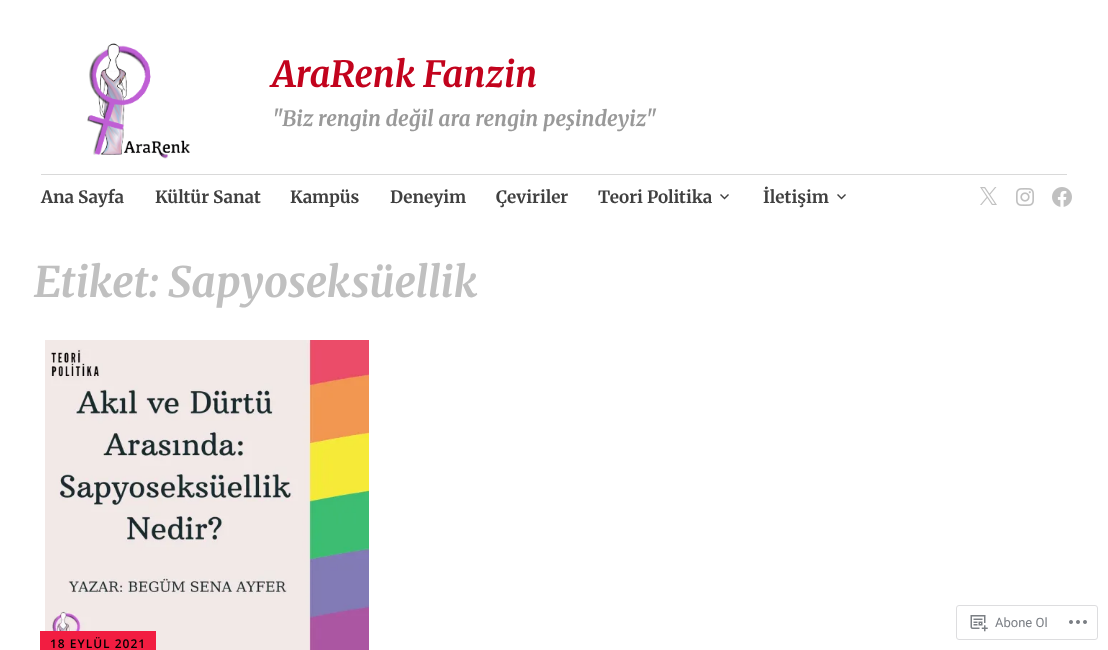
<?xml version="1.0" encoding="UTF-8"?>
<svg xmlns="http://www.w3.org/2000/svg" xmlns:xlink="http://www.w3.org/1999/xlink" width="1108" height="650">
  <rect width="100%" height="100%" fill="#ffffff" />
  <image x="87" y="43" width="103" height="116" xlink:href="image1.png" />
  <rect x="41" y="174" width="1026" height="1" fill="#d9d9d9" />
  <image x="720" y="194" width="9" height="6" xlink:href="image2.png" />
  <image x="837" y="194" width="9" height="6" xlink:href="image2.png" />
  <image x="980" y="187" width="17" height="18" xlink:href="image3.png" />
  <image x="1016" y="188" width="18" height="18" xlink:href="image4.png" />
  <image x="1052" y="187" width="20" height="20" xlink:href="image5.png" />
  <image x="45" y="340" width="324" height="310" xlink:href="image6.png" />
  <rect x="40" y="631" width="116" height="19" fill="#f21d41" />
  <rect x="956.5" y="605.5" width="141" height="34" rx="2.5" fill="none" stroke="#dddddf" />
  <image x="970" y="615" width="18" height="17" xlink:href="image7.png" />
  <image x="1069" y="620" width="18" height="4" xlink:href="image8.png" />
  <text x="272" y="87" style="font-family: Merriweather; font-size: 36px; font-weight: bold; font-style: italic; fill: #c2031d">AraRenk Fanzin</text>
  <text x="272" y="126" style="font-family: Merriweather; font-size: 21px; font-weight: bold; font-style: italic; fill: #999999">"Biz rengin değil ara rengin peşindeyiz"</text>
  <text x="41" y="203" style="font-family: Merriweather; font-size: 17px; font-weight: bold; fill: #404040">Ana Sayfa</text>
  <text x="155" y="203" style="font-family: Merriweather; font-size: 17px; font-weight: bold; fill: #404040">Kültür Sanat</text>
  <text x="290" y="203" style="font-family: Merriweather; font-size: 17px; font-weight: bold; fill: #404040">Kampüs</text>
  <text x="390" y="203" style="font-family: Merriweather; font-size: 17px; font-weight: bold; fill: #404040">Deneyim</text>
  <text x="496" y="203" style="font-family: Merriweather; font-size: 17px; font-weight: bold; fill: #404040">Çeviriler</text>
  <text x="598" y="203" style="font-family: Merriweather; font-size: 17px; font-weight: bold; fill: #404040">Teori Politika</text>
  <text x="763" y="203" style="font-family: Merriweather; font-size: 17px; font-weight: bold; fill: #404040">İletişim</text>
  <text x="34" y="297" style="font-family: Merriweather; font-size: 42px; font-weight: bold; font-style: italic; fill: #c0c0c0">Etiket: Sapyoseksüellik</text>
  <text x="50" y="648" style="font-family: Open Sans; font-size: 12px; font-weight: 600; letter-spacing: 1px; fill: #000000">18 EYLÜL 2021</text>
  <text x="995" y="627" style="font-family: Roboto; font-size: 13px; fill: #7b7f85">Abone Ol</text>
</svg>
